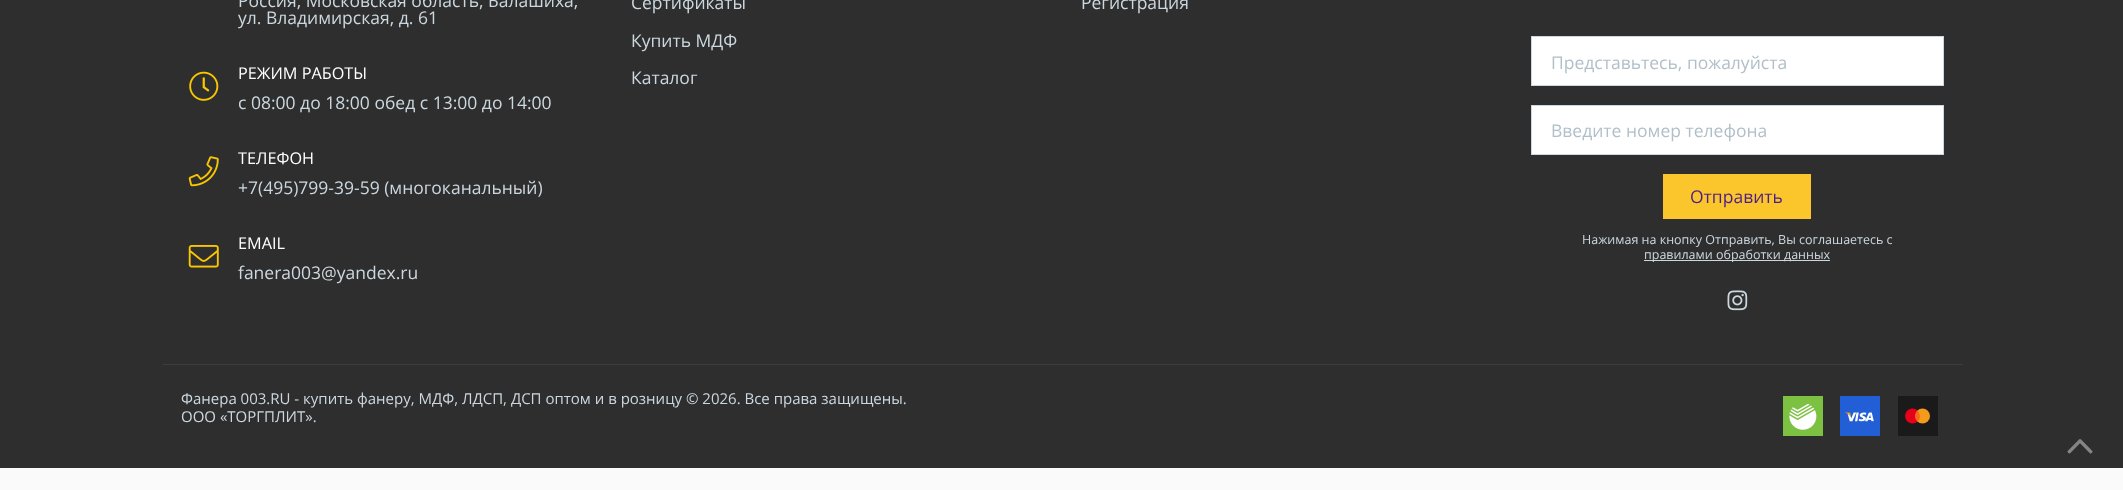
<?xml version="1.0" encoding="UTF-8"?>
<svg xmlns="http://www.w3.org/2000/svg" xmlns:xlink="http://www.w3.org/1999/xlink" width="2123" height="490">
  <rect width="100%" height="100%" fill="#fafafa" />
  <rect width="2123" height="468" fill="#2e2e2e" />
  <image x="189" y="71" width="30" height="30" xlink:href="image1.png" />
  <image x="188" y="156" width="31" height="31" xlink:href="image2.png" />
  <image x="188" y="245" width="31" height="23" xlink:href="image3.png" />
  <rect x="1531.5" y="36.5" width="412" height="49" fill="#ffffff" stroke="#ccd8df" />
  <rect x="1531.5" y="105.5" width="412" height="49" fill="#ffffff" stroke="#ccd8df" />
  <rect x="1663" y="174" width="148" height="45" fill="#fac62c" />
  <rect x="1644" y="260" width="186" height="1" fill="#ccd8df" />
  <image x="1727" y="290" width="21" height="21" xlink:href="image4.png" />
  <rect x="163" y="364" width="1800" height="1" fill="#3d3d38" />
  <image x="1783" y="396" width="40" height="40" xlink:href="image5.png" />
  <image x="1840" y="396" width="40" height="40" xlink:href="image6.png" />
  <rect x="1898" y="396" width="40" height="40" fill="#1a1a1a" />
  <circle cx="1912.5" cy="416" r="7.5" fill="#e7001a" />
  <circle cx="1922.5" cy="416" r="7.5" fill="#f49b1c" />
  <path d="M 1917.5 410.5 c 3 3 3.5 8.5 0 11.5 c -3.5 -3 -3 -8.5 0 -11.5 z" fill="#e7001a" fill-opacity="0.3" />
  <image x="2067" y="439" width="26" height="15" xlink:href="image7.png" />
  <text x="238" y="7" style="font-family: Open Sans; font-size: 17.5px; fill: #ccd8df">Россия, Московская область, Балашиха,</text>
  <text x="238" y="24" style="font-family: Open Sans; font-size: 17.5px; fill: #ccd8df">ул. Владимирская, д. 61</text>
  <text x="238" y="79" style="font-family: Open Sans; font-size: 16.25px; fill: #ffffff">РЕЖИМ РАБОТЫ</text>
  <text x="238" y="109" style="font-family: Open Sans; font-size: 17.5px; fill: #ccd8df">с 08:00 до 18:00 обед с 13:00 до 14:00</text>
  <text x="238" y="164" style="font-family: Open Sans; font-size: 16.25px; fill: #ffffff">ТЕЛЕФОН</text>
  <text x="238" y="194" style="font-family: Open Sans; font-size: 17.5px; fill: #ccd8df">+7(495)799-39-59 (многоканальный)</text>
  <text x="238" y="249" style="font-family: Open Sans; font-size: 16.25px; fill: #ffffff">EMAIL</text>
  <text x="238" y="279" style="font-family: Open Sans; font-size: 17.5px; fill: #ccd8df">fanera003@yandex.ru</text>
  <text x="631" y="9" style="font-family: Open Sans; font-size: 17.5px; fill: #ccd8df">Сертификаты</text>
  <text x="631" y="47" style="font-family: Open Sans; font-size: 17.5px; fill: #ccd8df">Купить МДФ</text>
  <text x="631" y="84" style="font-family: Open Sans; font-size: 17.5px; fill: #ccd8df">Каталог</text>
  <text x="1081" y="9" style="font-family: Open Sans; font-size: 17.5px; fill: #ccd8df">Регистрация</text>
  <text x="1551" y="69" style="font-family: Open Sans; font-size: 17.5px; fill: #b1bfc8">Представьтесь, пожалуйста</text>
  <text x="1551" y="137" style="font-family: Open Sans; font-size: 17.5px; fill: #b1bfc8">Введите номер телефона</text>
  <text x="1690" y="203" style="font-family: Open Sans; font-size: 17.5px; fill: #4c1e8b">Отправить</text>
  <text x="1582" y="244" style="font-family: Open Sans; font-size: 12.5px; fill: #ccd8df">Нажимая на кнопку Отправить, Вы соглашаетесь с</text>
  <text x="1644" y="259" style="font-family: Open Sans; font-size: 12.5px; fill: #ccd8df">правилами обработки данных</text>
  <text x="181" y="404" style="font-family: Open Sans; font-size: 15px; fill: #ccd8df">Фанера 003.RU - купить фанеру, МДФ, ЛДСП, ДСП оптом и в розницу © 2026. Все права защищены.</text>
  <text x="181" y="422" style="font-family: Open Sans; font-size: 15px; fill: #ccd8df">ООО «ТОРГПЛИТ».</text>
</svg>
